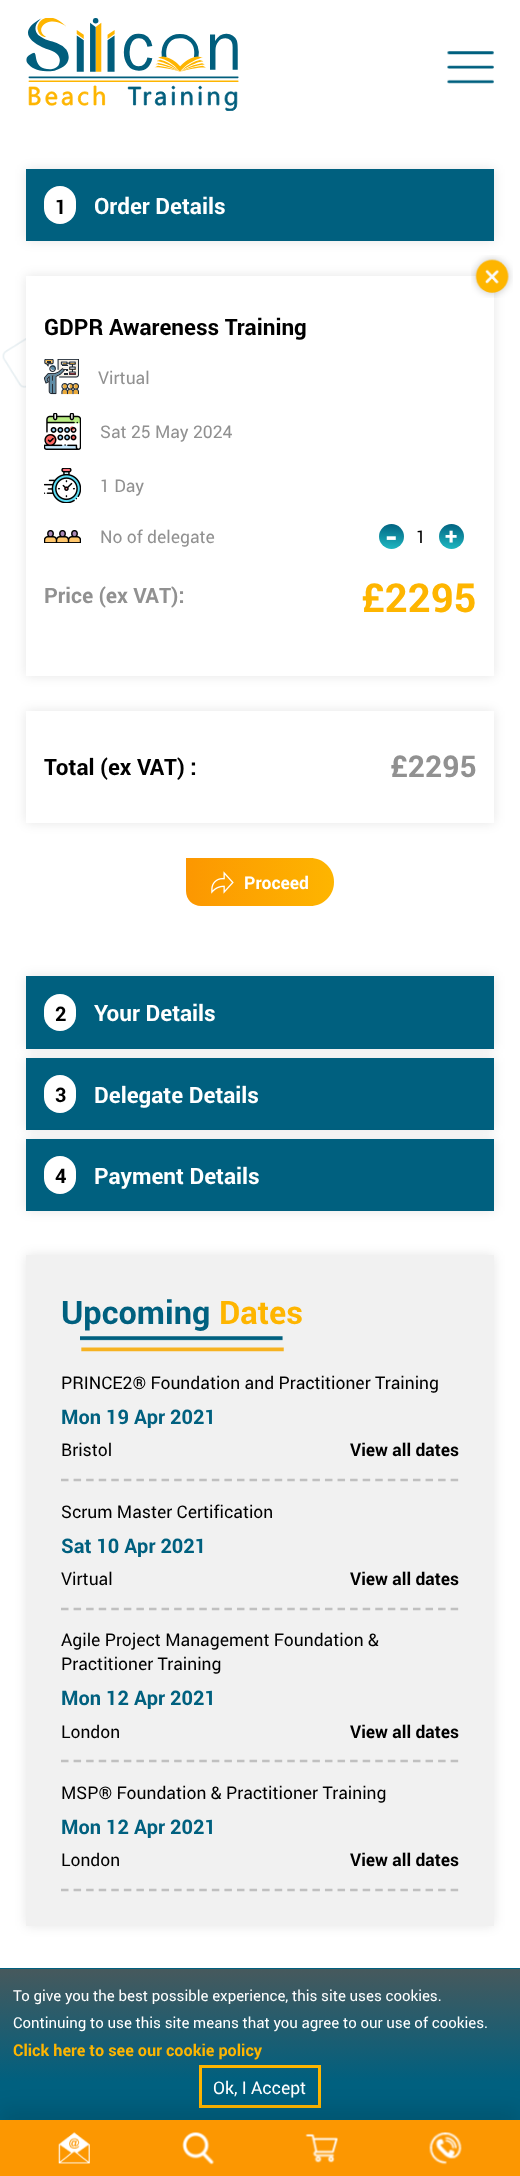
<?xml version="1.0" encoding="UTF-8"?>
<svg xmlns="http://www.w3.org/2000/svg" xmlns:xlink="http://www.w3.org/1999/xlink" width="520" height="2176">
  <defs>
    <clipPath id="clip1"><path d="M 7 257 h 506 v 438 h -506 z m 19 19 h 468 v 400 h -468 z" clip-rule="evenodd" /></clipPath>
    <linearGradient id="g1" gradientUnits="userSpaceOnUse" x1="392" y1="523" x2="390" y2="550"><stop offset="0" stop-color="#00607f" /><stop offset="1" stop-color="#20bbc3" /></linearGradient>
    <linearGradient id="g2" gradientUnits="userSpaceOnUse" x1="452" y1="523" x2="450" y2="550"><stop offset="0" stop-color="#00607f" /><stop offset="1" stop-color="#20bbc3" /></linearGradient>
    <linearGradient id="g3" gradientUnits="userSpaceOnUse" x1="334" y1="882" x2="186" y2="882"><stop offset="0" stop-color="#feb500" /><stop offset="1" stop-color="#fc9701" /></linearGradient>
    <linearGradient id="g4" gradientUnits="userSpaceOnUse" x1="260" y1="1969" x2="260" y2="1802"><stop offset="0.23" stop-color="#00607f" /><stop offset="1" stop-color="#505858" /></linearGradient>
    <linearGradient id="g5" gradientUnits="userSpaceOnUse" x1="260" y1="2120" x2="260" y2="1954"><stop offset="0.23" stop-color="#00607f" /><stop offset="1" stop-color="#505858" /></linearGradient>
  </defs>
  <rect width="100%" height="100%" fill="#ffffff" />
  <image x="26" y="18" width="213" height="93" xlink:href="image1.png" />
  <image x="447" y="51" width="47" height="33" xlink:href="image2.png" />
  <image x="2" y="338" width="24" height="50" xlink:href="image3.png" />
  <rect x="26" y="169" width="468" height="72" fill="#000000" fill-opacity="0.1" filter="blur(6px)" />
  <rect x="26" y="169" width="468" height="72" fill="#00607f" />
  <rect x="44" y="186" width="32" height="38" rx="16" fill="#ffffff" />
  <g clip-path="url(#clip1)">
    <rect x="26" y="276" width="468" height="400" fill="#000000" fill-opacity="0.1" filter="blur(6px)" />
  </g>
  <image x="471" y="255" width="42" height="43" xlink:href="image4.png" />
  <image x="44" y="359" width="35" height="36" xlink:href="image5.png" />
  <image x="44" y="413" width="37" height="37" xlink:href="image6.png" />
  <image x="44" y="468" width="37" height="35" xlink:href="image7.png" />
  <image x="44" y="530" width="37" height="13" xlink:href="image8.png" />
  <circle cx="391.5" cy="536.5" r="12.5" fill="url(#g1)" />
  <circle cx="451.5" cy="536.5" r="12.5" fill="url(#g2)" />
  <rect x="26" y="711" width="468" height="112" fill="#000000" fill-opacity="0.1" filter="blur(6px)" />
  <rect x="26" y="711" width="468" height="112" fill="#ffffff" />
  <path d="M 186 858 h 124 c 13.5 0 24 10.5 24 24 c 0 13.5 -10.5 24 -24 24 h -109 c -8.5 0 -15 -6.5 -15 -15 z" fill="url(#g3)" />
  <image x="211" y="871" width="23" height="23" xlink:href="image9.png" />
  <rect x="26" y="976" width="468" height="73" fill="#000000" fill-opacity="0.1" filter="blur(6px)" />
  <rect x="26" y="976" width="468" height="73" fill="#00607f" />
  <rect x="44" y="994" width="32" height="37" rx="16" fill="#ffffff" />
  <rect x="26" y="1058" width="468" height="72" fill="#000000" fill-opacity="0.1" filter="blur(6px)" />
  <rect x="26" y="1058" width="468" height="72" fill="#00607f" />
  <rect x="44" y="1075" width="32" height="38" rx="16" fill="#ffffff" />
  <rect x="26" y="1139" width="468" height="72" fill="#000000" fill-opacity="0.1" filter="blur(6px)" />
  <rect x="26" y="1139" width="468" height="72" fill="#00607f" />
  <rect x="44" y="1156" width="32" height="38" rx="16" fill="#ffffff" />
  <rect x="26" y="1255" width="468" height="671" fill="#000000" fill-opacity="0.1" filter="blur(6px)" />
  <rect x="26" y="1255" width="468" height="671" fill="#f1f1f1" />
  <image x="80" y="1336" width="204" height="16" xlink:href="image10.png" />
  <path d="M 61 1480 h 398" fill="none" stroke="#c0c0c0" stroke-width="2.5" stroke-dasharray="7.5 5.07" />
  <path d="M 61 1609 h 398" fill="none" stroke="#c0c0c0" stroke-width="2.5" stroke-dasharray="7.5 5.07" />
  <path d="M 61 1761 h 398" fill="none" stroke="#c0c0c0" stroke-width="2.5" stroke-dasharray="7.5 5.07" />
  <path d="M 61 1890 h 398" fill="none" stroke="#c0c0c0" stroke-width="2.5" stroke-dasharray="7.5 5.07" />
  <rect y="1968" width="520" height="1" fill="url(#g4)" />
  <rect y="1969" width="520" height="151" fill="url(#g5)" />
  <rect x="200.5" y="2066.5" width="119" height="40" fill="none" stroke="#feb500" stroke-width="3" />
  <rect y="2108" width="520" height="56" fill="#000000" fill-opacity="0.1" filter="blur(9.5px)" />
  <rect y="2120" width="520" height="56" fill="#fc9701" />
  <image x="58" y="2132" width="32" height="32" xlink:href="image11.png" />
  <image x="182" y="2132" width="33" height="33" xlink:href="image12.png" />
  <image x="305" y="2133" width="33" height="30" xlink:href="image13.png" />
  <image x="429" y="2132" width="33" height="33" xlink:href="image14.png" />
  <text x="55" y="214" style="font-family: Roboto; font-size: 20px; font-weight: bold; fill: #000000">1</text>
  <text x="94" y="214" style="font-family: Roboto; font-size: 22.5px; font-weight: bold; fill: #ffffff">Order Details</text>
  <text x="44" y="335" style="font-family: Roboto; font-size: 22.5px; font-weight: bold; fill: #000000">GDPR Awareness Training</text>
  <text x="98" y="384" style="font-family: Roboto; font-size: 17.5px; fill: #919191">Virtual</text>
  <text x="100" y="438" style="font-family: Roboto; font-size: 17.5px; fill: #919191">Sat 25 May 2024</text>
  <text x="100" y="492" style="font-family: Roboto; font-size: 17.5px; fill: #919191">1 Day</text>
  <text x="100" y="543" style="font-family: Roboto; font-size: 17.5px; fill: #919191">No of delegate</text>
  <text x="385" y="548" style="font-family: Roboto; font-size: 32.5px; font-weight: bold; fill: #ffffff">-</text>
  <text x="416" y="543" style="font-family: Roboto; font-size: 17.5px; fill: #000000">1</text>
  <text x="445" y="544" style="font-family: Roboto; font-size: 22.5px; font-weight: bold; fill: #ffffff">+</text>
  <text x="44" y="603" style="font-family: Roboto; font-size: 21.25px; font-weight: bold; fill: #919191">Price (ex VAT):</text>
  <text x="361" y="612" style="font-family: Roboto; font-size: 40px; font-weight: bold; fill: #feb500">£2295</text>
  <text x="44" y="775" style="font-family: Roboto; font-size: 22.5px; font-weight: bold; fill: #000000">Total (ex VAT) :</text>
  <text x="390" y="777" style="font-family: Roboto; font-size: 30px; font-weight: bold; fill: #919191">£2295</text>
  <text x="244" y="889" style="font-family: Roboto; font-size: 17.5px; font-weight: bold; fill: #ffffff">Proceed</text>
  <text x="55" y="1021" style="font-family: Roboto; font-size: 20px; font-weight: bold; fill: #000000">2</text>
  <text x="94" y="1021" style="font-family: Roboto; font-size: 22.5px; font-weight: bold; fill: #ffffff">Your Details</text>
  <text x="55" y="1102" style="font-family: Roboto; font-size: 20px; font-weight: bold; fill: #000000">3</text>
  <text x="94" y="1103" style="font-family: Roboto; font-size: 22.5px; font-weight: bold; fill: #ffffff">Delegate Details</text>
  <text x="55" y="1183" style="font-family: Roboto; font-size: 20px; font-weight: bold; fill: #000000">4</text>
  <text x="94" y="1184" style="font-family: Roboto; font-size: 22.5px; font-weight: bold; fill: #ffffff">Payment Details</text>
  <text x="61" y="1324" style="font-family: Roboto; font-size: 32.5px; font-weight: bold; fill: #00607f">Upcoming</text>
  <text x="219" y="1324" style="font-family: Roboto; font-size: 32.5px; font-weight: bold; fill: #feb500">Dates</text>
  <text x="61" y="1389" style="font-family: Roboto; font-size: 17.5px; fill: #000000">PRINCE2® Foundation and Practitioner Training</text>
  <text x="61" y="1424" style="font-family: Roboto; font-size: 20px; font-weight: bold; fill: #00607f">Mon 19 Apr 2021</text>
  <text x="61" y="1456" style="font-family: Roboto; font-size: 17.5px; fill: #000000">Bristol</text>
  <text x="350" y="1456" style="font-family: Roboto; font-size: 17.5px; font-weight: bold; fill: #000000">View all dates</text>
  <text x="61" y="1518" style="font-family: Roboto; font-size: 17.5px; fill: #000000">Scrum Master Certification</text>
  <text x="61" y="1553" style="font-family: Roboto; font-size: 20px; font-weight: bold; fill: #00607f">Sat 10 Apr 2021</text>
  <text x="61" y="1585" style="font-family: Roboto; font-size: 17.5px; fill: #000000">Virtual</text>
  <text x="350" y="1585" style="font-family: Roboto; font-size: 17.5px; font-weight: bold; fill: #000000">View all dates</text>
  <text x="61" y="1646" style="font-family: Roboto; font-size: 17.5px; fill: #000000">Agile Project Management Foundation &amp;</text>
  <text x="61" y="1670" style="font-family: Roboto; font-size: 17.5px; fill: #000000">Practitioner Training</text>
  <text x="61" y="1705" style="font-family: Roboto; font-size: 20px; font-weight: bold; fill: #00607f">Mon 12 Apr 2021</text>
  <text x="61" y="1738" style="font-family: Roboto; font-size: 17.5px; fill: #000000">London</text>
  <text x="350" y="1738" style="font-family: Roboto; font-size: 17.5px; font-weight: bold; fill: #000000">View all dates</text>
  <text x="61" y="1799" style="font-family: Roboto; font-size: 17.5px; fill: #000000">MSP® Foundation &amp; Practitioner Training</text>
  <text x="61" y="1834" style="font-family: Roboto; font-size: 20px; font-weight: bold; fill: #00607f">Mon 12 Apr 2021</text>
  <text x="61" y="1866" style="font-family: Roboto; font-size: 17.5px; fill: #000000">London</text>
  <text x="350" y="1866" style="font-family: Roboto; font-size: 17.5px; font-weight: bold; fill: #000000">View all dates</text>
  <text x="13" y="2001" style="font-family: Roboto; font-size: 15px; fill: #ffffff">To give you the best possible experience, this site uses cookies.</text>
  <text x="13" y="2028" style="font-family: Roboto; font-size: 15px; fill: #ffffff">Continuing to use this site means that you agree to our use of cookies.</text>
  <text x="13" y="2056" style="font-family: Roboto; font-size: 16.25px; font-weight: bold; fill: #feb500">Click here to see our cookie policy</text>
  <text x="213" y="2094" style="font-family: Roboto; font-size: 17.5px; fill: #ffffff">Ok, I Accept</text>
</svg>
